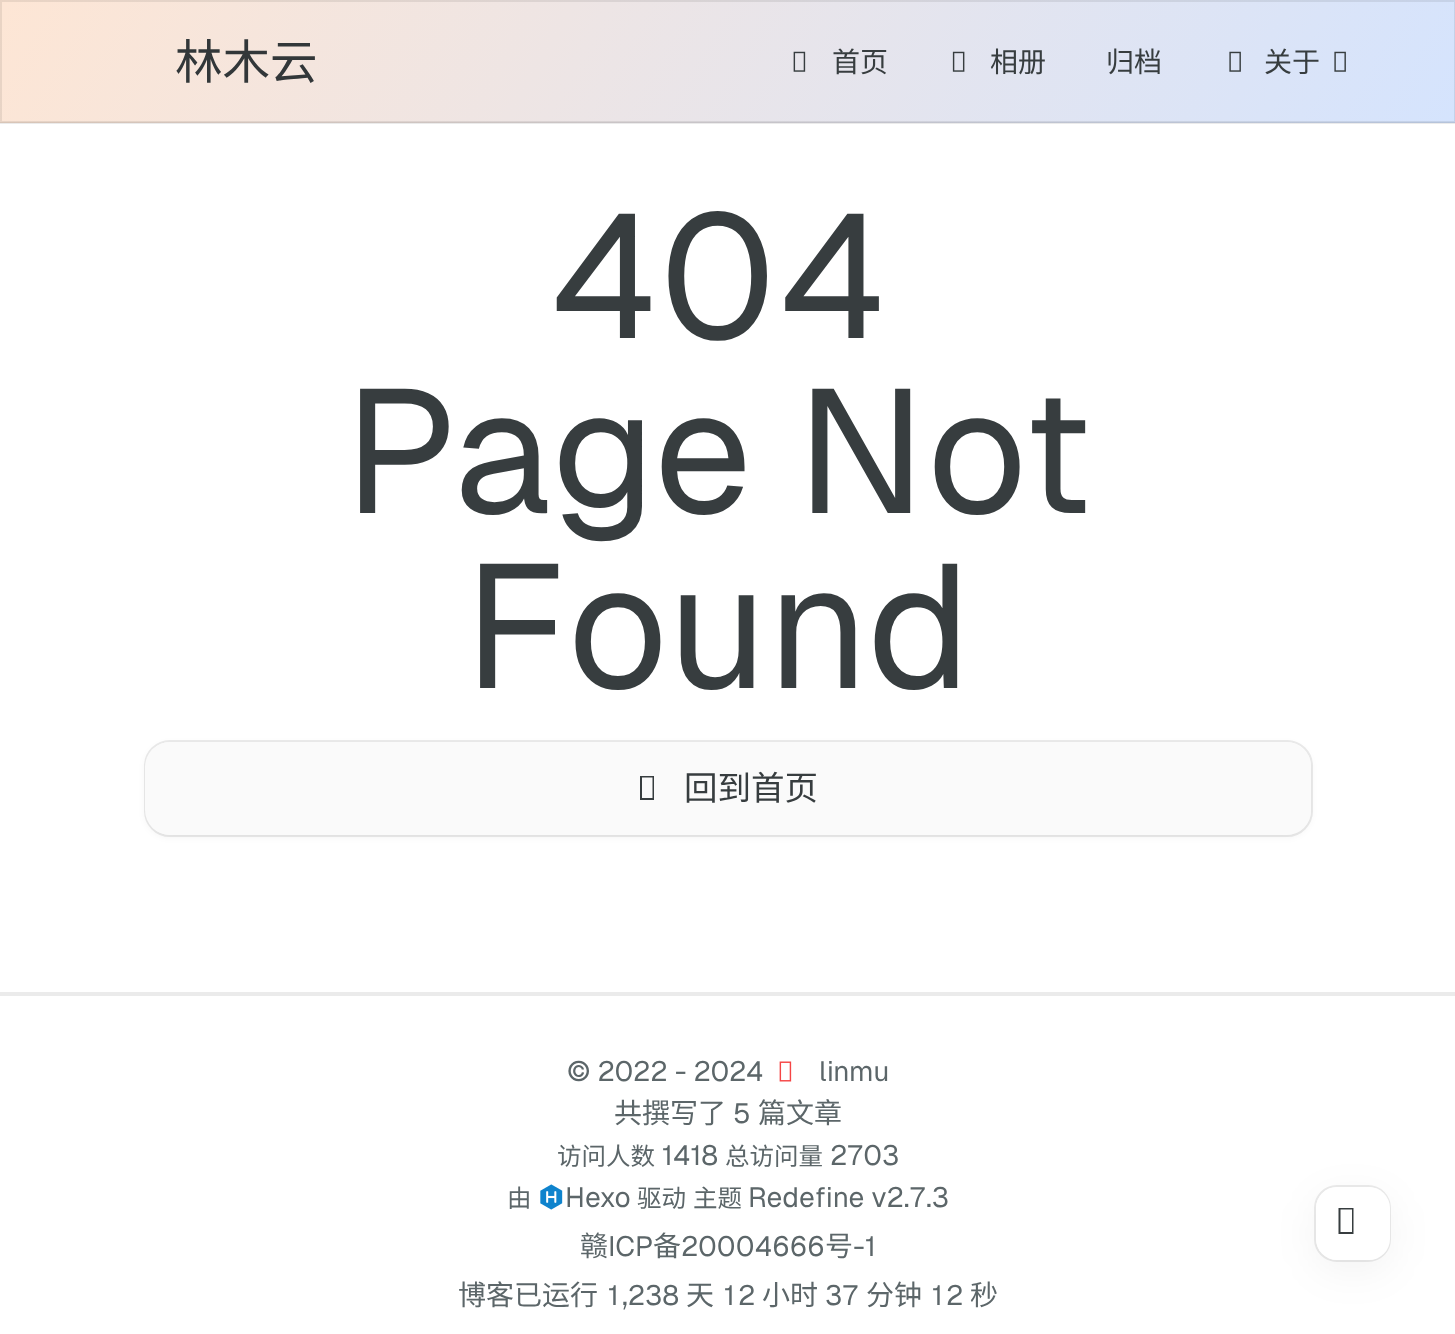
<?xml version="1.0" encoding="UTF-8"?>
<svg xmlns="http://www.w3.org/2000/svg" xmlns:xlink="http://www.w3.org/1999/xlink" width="1455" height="1334">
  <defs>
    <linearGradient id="g1" gradientUnits="userSpaceOnUse" x1="155" y1="-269" x2="1301" y2="392"><stop offset="0" stop-color="#f78736" stop-opacity="0.21" /><stop offset="1" stop-color="#367df7" stop-opacity="0.21" /></linearGradient>
  </defs>
  <rect width="100%" height="100%" fill="#ffffff" />
  <rect x="-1" y="-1" width="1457" height="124" fill="none" stroke="#ebebeb" stroke-width="2" />
  <rect width="1455" height="123" fill="url(#g1)" />
  <rect x="1" y="1" width="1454" height="121" fill="none" stroke="#000000" stroke-opacity="0.08" stroke-width="2" />
  <image x="793" y="51" width="13" height="21" xlink:href="image1.png" />
  <image x="952" y="51" width="13" height="21" xlink:href="image2.png" />
  <image x="1229" y="51" width="12" height="21" xlink:href="image3.png" />
  <image x="1334" y="51" width="12" height="21" xlink:href="image4.png" />
  <rect x="145" y="741" width="1167" height="95" rx="25" fill="none" stroke="#ebebeb" stroke-width="2" />
  <rect x="145" y="744" width="1166" height="93" rx="25" fill="#000000" fill-opacity="0.05" filter="blur(3.5px)" />
  <rect x="145" y="742" width="1166" height="93" rx="25" fill="#fafafa" />
  <path d="M 640 800 v -24 h 14 v 24 z m 2 -2 h 10.5 v -20.5 h -10.5 z" fill="#373d3f" />
  <rect y="992" width="1455" height="4" fill="#ebebeb" />
  <image x="779" y="1061" width="13" height="21" xlink:href="image5.png" />
  <image x="540" y="1184" width="23" height="26" xlink:href="image6.png" />
  <rect x="1315" y="1186" width="75" height="75" rx="22" fill="none" stroke="#ebebeb" stroke-width="2" />
  <rect x="1316" y="1197" width="74" height="74" rx="21" fill="#000000" fill-opacity="0.05" filter="blur(21px)" />
  <rect x="1316" y="1187" width="74" height="73" rx="21" fill="#ffffff" />
  <path d="M 1338.5 1234 v -26 h 15 v 26 z m 2 -2 h 11.5 v -22.5 h -11.5 z" fill="#373d3f" />
  <text x="175" y="79" style="font-family: Noto Sans CJK SC; font-size: 47.5px; fill: #323739">林木云</text>
  <text x="832" y="72" style="font-family: Noto Sans CJK SC; font-size: 28px; fill: #373d3f">首页</text>
  <text x="990" y="72" style="font-family: Noto Sans CJK SC; font-size: 28px; fill: #373d3f">相册</text>
  <text x="1106" y="72" style="font-family: Noto Sans CJK SC; font-size: 28px; fill: #373d3f">归档</text>
  <text x="1264" y="72" style="font-family: Noto Sans CJK SC; font-size: 28px; fill: #373d3f">关于</text>
  <text x="548" y="338" style="font-family: Geist; font-size: 175px; fill: #373d3f">404</text>
  <text x="344" y="513" style="font-family: Geist; font-size: 175px; fill: #373d3f">Page Not</text>
  <text x="464" y="688" style="font-family: Geist; font-size: 175px; fill: #373d3f">Found</text>
  <text x="684" y="800" style="font-family: Noto Sans SC; font-size: 33.5px; fill: #373d3f">回到首页</text>
  <text x="567" y="1081" style="font-family: Geist; font-size: 28px; fill: #5c6669">© 2022 - 2024</text>
  <text x="819" y="1081" style="font-family: Geist; font-size: 28px; fill: #5c6669">linmu</text>
  <text x="614" y="1123" style="font-family: Noto Sans SC; font-size: 28px; fill: #5c6669">共撰写了</text>
  <text x="733" y="1123" style="font-family: Geist; font-size: 28px; fill: #5c6669">5</text>
  <text x="758" y="1123" style="font-family: Noto Sans SC; font-size: 28px; fill: #5c6669">篇文章</text>
  <text x="557" y="1165" style="font-family: Noto Sans SC; font-size: 24.5px; fill: #5c6669">访问人数</text>
  <text x="662" y="1165" style="font-family: Geist; font-size: 28px; fill: #5c6669">1418</text>
  <text x="725" y="1165" style="font-family: Noto Sans SC; font-size: 24.5px; fill: #5c6669">总访问量</text>
  <text x="830" y="1165" style="font-family: Geist; font-size: 28px; fill: #5c6669">2703</text>
  <text x="507" y="1207" style="font-family: Noto Sans SC; font-size: 24.5px; fill: #5c6669">由</text>
  <text x="565" y="1207" style="font-family: Geist; font-size: 28px; fill: #5c6669">Hexo</text>
  <text x="637" y="1207" style="font-family: Noto Sans SC; font-size: 24.5px; fill: #5c6669">驱动</text>
  <text x="693" y="1207" style="font-family: Noto Sans SC; font-size: 24.5px; fill: #5c6669">主题</text>
  <text x="748" y="1207" style="font-family: Geist; font-size: 28px; fill: #5c6669">Redefine v2.7.3</text>
  <text x="580" y="1256" style="font-family: Noto Sans SC; font-size: 28px; fill: #5c6669">赣</text>
  <text x="608" y="1256" style="font-family: Geist; font-size: 28px; fill: #5c6669">ICP</text>
  <text x="653" y="1256" style="font-family: Noto Sans SC; font-size: 28px; fill: #5c6669">备</text>
  <text x="681" y="1256" style="font-family: Geist; font-size: 28px; fill: #5c6669">20004666</text>
  <text x="825" y="1256" style="font-family: Noto Sans SC; font-size: 28px; fill: #5c6669">号</text>
  <text x="853" y="1256" style="font-family: Geist; font-size: 28px; fill: #5c6669">-1</text>
  <text x="458" y="1305" style="font-family: Noto Sans SC; font-size: 28px; fill: #5c6669">博客已运行</text>
  <text x="608" y="1305" style="font-family: Geist; font-size: 28px; fill: #5c6669">1</text>
  <text x="622" y="1305" style="font-family: Geist; font-size: 28px; fill: #5c6669">,2</text>
  <text x="645" y="1305" style="font-family: Geist; font-size: 28px; fill: #5c6669">38</text>
  <text x="686" y="1305" style="font-family: Noto Sans SC; font-size: 28px; fill: #5c6669">天</text>
  <text x="724" y="1305" style="font-family: Geist; font-size: 28px; fill: #5c6669">1</text>
  <text x="738" y="1305" style="font-family: Geist; font-size: 28px; fill: #5c6669">2</text>
  <text x="762" y="1305" style="font-family: Noto Sans SC; font-size: 28px; fill: #5c6669">小时</text>
  <text x="825" y="1305" style="font-family: Geist; font-size: 28px; fill: #5c6669">37</text>
  <text x="866" y="1305" style="font-family: Noto Sans SC; font-size: 28px; fill: #5c6669">分钟</text>
  <text x="932" y="1305" style="font-family: Geist; font-size: 28px; fill: #5c6669">1</text>
  <text x="946" y="1305" style="font-family: Geist; font-size: 28px; fill: #5c6669">2</text>
  <text x="970" y="1305" style="font-family: Noto Sans SC; font-size: 28px; fill: #5c6669">秒</text>
</svg>
